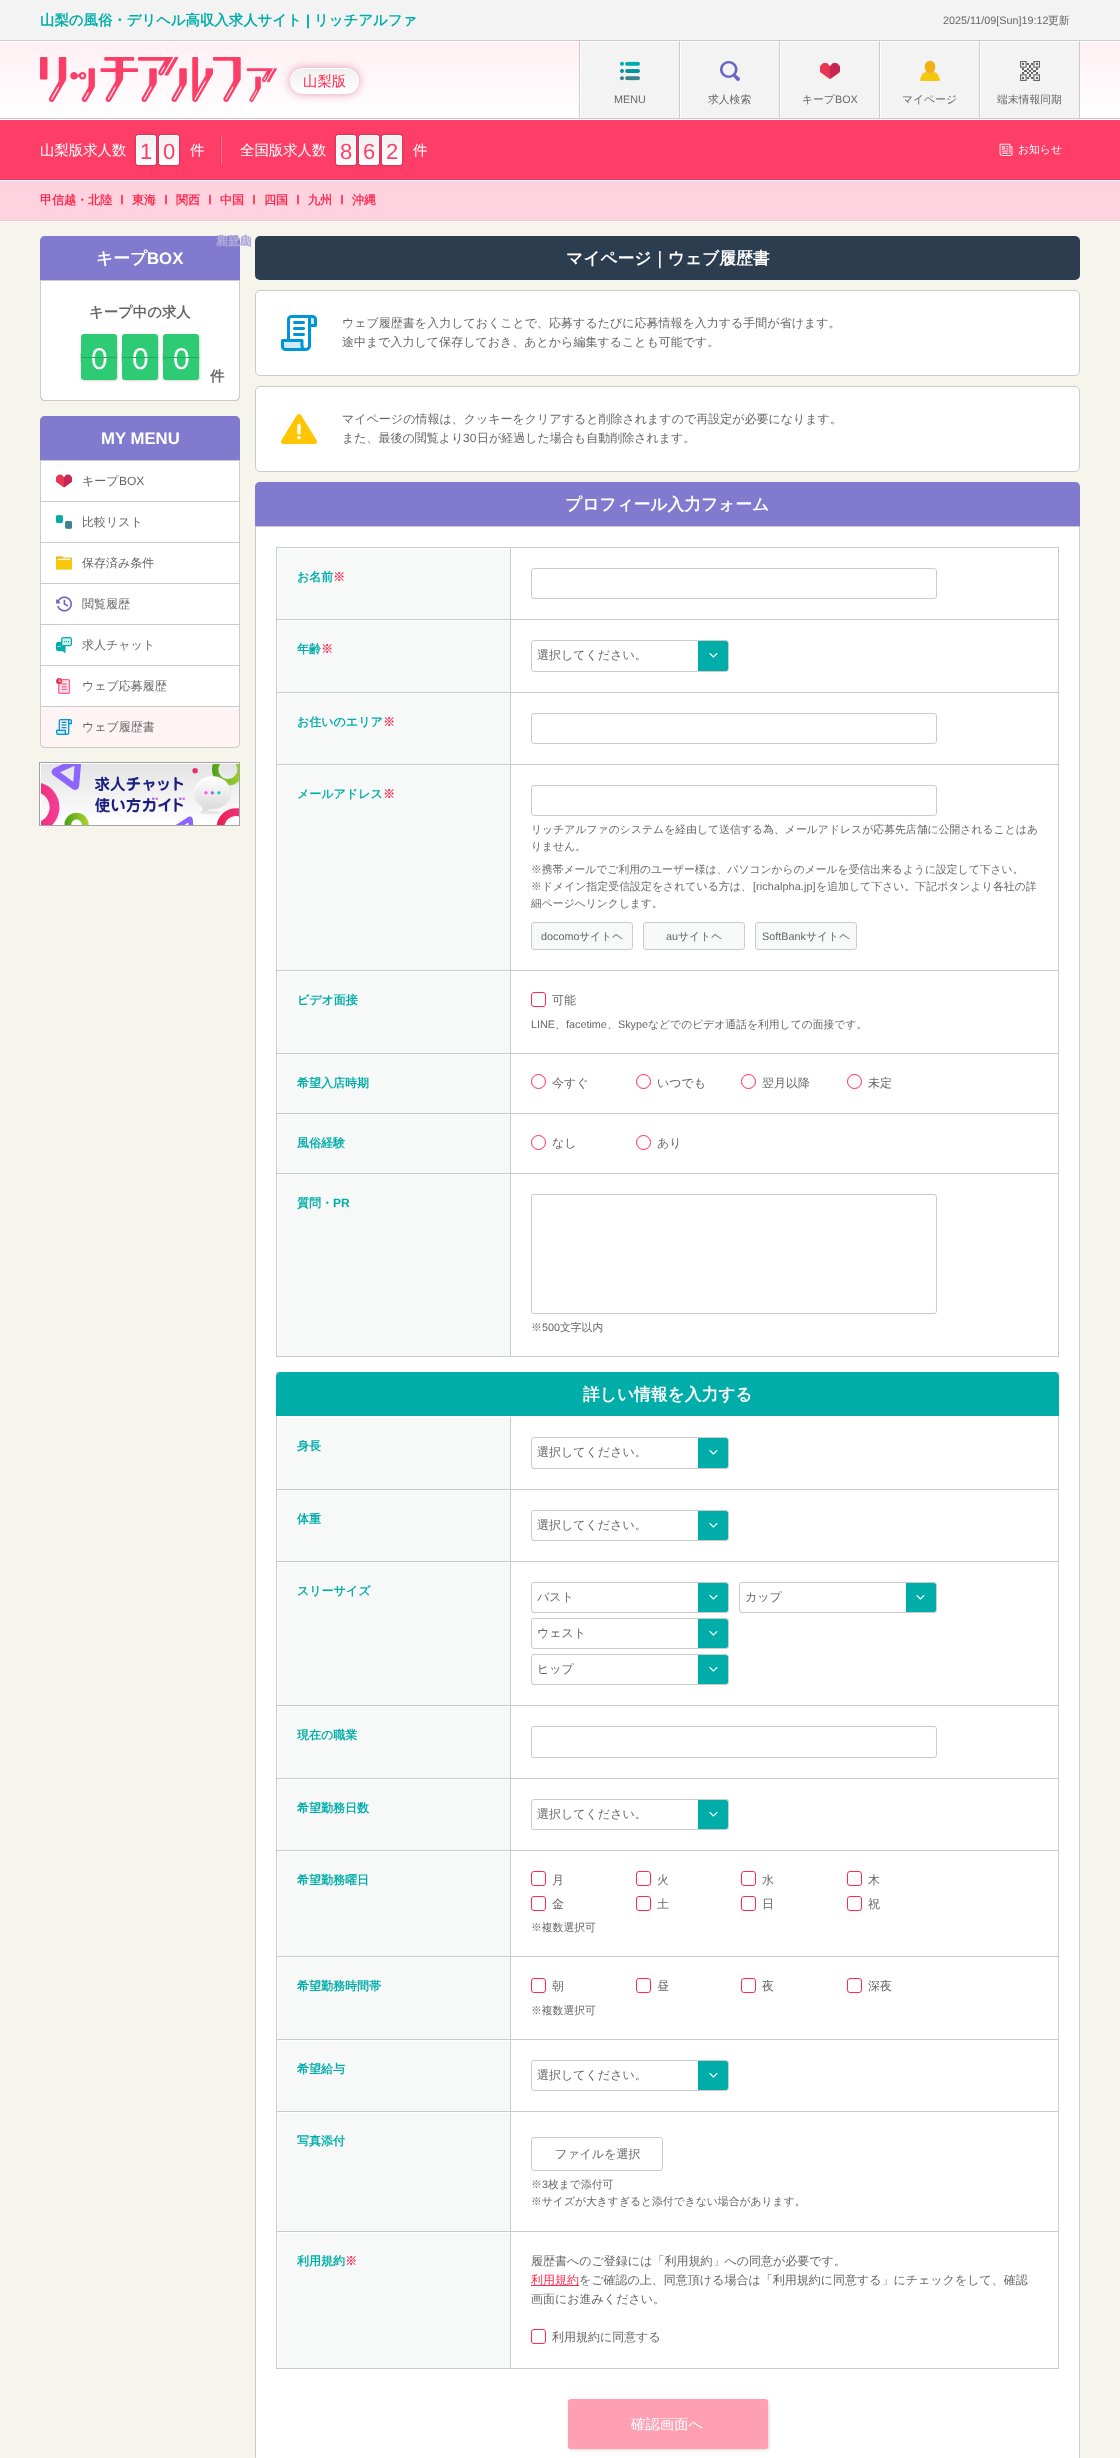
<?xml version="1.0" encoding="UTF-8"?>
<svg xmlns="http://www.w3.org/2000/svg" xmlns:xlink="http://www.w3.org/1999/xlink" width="1120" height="2458">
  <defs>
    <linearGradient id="g1" gradientUnits="userSpaceOnUse" x1="560" y1="41" x2="560" y2="118"><stop offset="0" stop-color="#fff0f4" /><stop offset="1" stop-color="#ffffff" /></linearGradient>
    <clipPath id="clip1"><rect x="290" y="68" width="69" height="26" rx="13" /></clipPath>
    <linearGradient id="g2" gradientUnits="userSpaceOnUse" x1="325" y1="69" x2="325" y2="93"><stop offset="0" stop-color="#f0f0f0" /><stop offset="1" stop-color="#ffffff" /></linearGradient>
    <clipPath id="clip2"><rect x="580" y="41" width="99" height="77" /></clipPath>
    <clipPath id="clip3"><rect x="680" y="41" width="99" height="77" /></clipPath>
    <clipPath id="clip4"><rect x="780" y="41" width="99" height="77" /></clipPath>
    <clipPath id="clip5"><rect x="880" y="41" width="99" height="77" /></clipPath>
    <clipPath id="clip6"><rect x="980" y="41" width="99" height="77" /></clipPath>
    <clipPath id="clip7"><rect x="136" y="135" width="20" height="30" rx="2" /></clipPath>
    <linearGradient id="g3" gradientUnits="userSpaceOnUse" x1="146" y1="136" x2="146" y2="164"><stop offset="0" stop-color="#f0f0f0" /><stop offset="1" stop-color="#ffffff" /></linearGradient>
    <clipPath id="clip8"><rect x="159" y="135" width="20" height="30" rx="2" /></clipPath>
    <linearGradient id="g4" gradientUnits="userSpaceOnUse" x1="169" y1="136" x2="169" y2="164"><stop offset="0" stop-color="#f0f0f0" /><stop offset="1" stop-color="#ffffff" /></linearGradient>
    <clipPath id="clip9"><rect x="336" y="135" width="20" height="30" rx="2" /></clipPath>
    <linearGradient id="g5" gradientUnits="userSpaceOnUse" x1="346" y1="136" x2="346" y2="164"><stop offset="0" stop-color="#f0f0f0" /><stop offset="1" stop-color="#ffffff" /></linearGradient>
    <clipPath id="clip10"><rect x="359" y="135" width="20" height="30" rx="2" /></clipPath>
    <linearGradient id="g6" gradientUnits="userSpaceOnUse" x1="369" y1="136" x2="369" y2="164"><stop offset="0" stop-color="#f0f0f0" /><stop offset="1" stop-color="#ffffff" /></linearGradient>
    <clipPath id="clip11"><rect x="382" y="135" width="20" height="30" rx="2" /></clipPath>
    <linearGradient id="g7" gradientUnits="userSpaceOnUse" x1="392" y1="136" x2="392" y2="164"><stop offset="0" stop-color="#f0f0f0" /><stop offset="1" stop-color="#ffffff" /></linearGradient>
  </defs>
  <rect width="100%" height="100%" fill="#f4f1e7" />
  <image x="0" y="222" width="1120" height="2236" xlink:href="image1.png" />
  <rect y="221" width="1120" height="1" fill="#ffffff" />
  <rect width="1120" height="40" fill="#f3f3f3" />
  <rect y="40" width="1120" height="1" fill="#cbcbcb" />
  <rect y="42" width="1120" height="76" fill="url(#g1)" />
  <rect y="41" width="1120" height="1" fill="#ffffff" />
  <rect y="118" width="1120" height="1" fill="#cbcbcb" />
  <image x="40" y="57" width="237" height="45" xlink:href="image2.png" />
  <rect x="290" y="68" width="69" height="26" rx="13" fill="#c52e6c" fill-opacity="0.5" filter="blur(5px)" />
  <g clip-path="url(#clip1)">
    <rect x="290" y="69" width="69" height="24" fill="url(#g2)" />
  </g>
  <rect x="290.5" y="68.5" width="68" height="25" rx="12.5" fill="none" stroke="#ffffff" />
  <rect x="579" y="41" width="1" height="77" fill="#cbcbcb" />
  <rect x="581" y="42" width="98" height="76" fill="#f3f3f3" />
  <g clip-path="url(#clip2)">
    <path d="M 481 -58 h 297 v 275 h -297 z m 100 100 h 99 v 77 h -99 z" fill="#ffffff" fill-rule="evenodd" />
  </g>
  <rect x="679" y="41" width="1" height="77" fill="#cbcbcb" />
  <image x="620" y="61" width="20" height="20" xlink:href="image3.png" />
  <rect x="681" y="42" width="98" height="76" fill="#f3f3f3" />
  <g clip-path="url(#clip3)">
    <path d="M 581 -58 h 297 v 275 h -297 z m 100 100 h 99 v 77 h -99 z" fill="#ffffff" fill-rule="evenodd" />
  </g>
  <rect x="779" y="41" width="1" height="77" fill="#cbcbcb" />
  <image x="720" y="61" width="20" height="20" xlink:href="image4.png" />
  <rect x="781" y="42" width="98" height="76" fill="#f3f3f3" />
  <g clip-path="url(#clip4)">
    <path d="M 681 -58 h 297 v 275 h -297 z m 100 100 h 99 v 77 h -99 z" fill="#ffffff" fill-rule="evenodd" />
  </g>
  <rect x="879" y="41" width="1" height="77" fill="#cbcbcb" />
  <image x="820" y="63" width="20" height="16" xlink:href="image5.png" />
  <rect x="881" y="42" width="98" height="76" fill="#f3f3f3" />
  <g clip-path="url(#clip5)">
    <path d="M 781 -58 h 297 v 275 h -297 z m 100 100 h 99 v 77 h -99 z" fill="#ffffff" fill-rule="evenodd" />
  </g>
  <rect x="979" y="41" width="1" height="77" fill="#cbcbcb" />
  <image x="920" y="61" width="20" height="20" xlink:href="image6.png" />
  <rect x="981" y="42" width="98" height="76" fill="#f3f3f3" />
  <g clip-path="url(#clip6)">
    <path d="M 881 -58 h 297 v 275 h -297 z m 100 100 h 99 v 77 h -99 z" fill="#ffffff" fill-rule="evenodd" />
  </g>
  <rect x="1079" y="41" width="1" height="77" fill="#cbcbcb" />
  <image x="1020" y="61" width="20" height="20" xlink:href="image7.png" />
  <rect y="120" width="1120" height="59" fill="#fe3e67" />
  <rect y="119" width="1120" height="1" fill="#ffffff" />
  <rect y="179" width="1120" height="1" fill="#e43a64" />
  <rect x="221" y="135" width="1" height="30" fill="#fe6e8d" />
  <rect x="220" y="135" width="1" height="30" fill="#e43a64" />
  <rect x="136" y="135" width="20" height="30" rx="2" fill="#000000" fill-opacity="0.3" filter="blur(1.5px)" />
  <g clip-path="url(#clip7)">
    <rect x="136" y="136" width="20" height="28" fill="url(#g3)" />
  </g>
  <rect x="136.5" y="135.5" width="19" height="29" rx="1.5" fill="none" stroke="#ffffff" />
  <rect x="159" y="135" width="20" height="30" rx="2" fill="#000000" fill-opacity="0.3" filter="blur(1.5px)" />
  <g clip-path="url(#clip8)">
    <rect x="159" y="136" width="20" height="28" fill="url(#g4)" />
  </g>
  <rect x="159.5" y="135.5" width="19" height="29" rx="1.5" fill="none" stroke="#ffffff" />
  <rect x="336" y="135" width="20" height="30" rx="2" fill="#000000" fill-opacity="0.3" filter="blur(1.5px)" />
  <g clip-path="url(#clip9)">
    <rect x="336" y="136" width="20" height="28" fill="url(#g5)" />
  </g>
  <rect x="336.5" y="135.5" width="19" height="29" rx="1.5" fill="none" stroke="#ffffff" />
  <rect x="359" y="135" width="20" height="30" rx="2" fill="#000000" fill-opacity="0.3" filter="blur(1.5px)" />
  <g clip-path="url(#clip10)">
    <rect x="359" y="136" width="20" height="28" fill="url(#g6)" />
  </g>
  <rect x="359.5" y="135.5" width="19" height="29" rx="1.5" fill="none" stroke="#ffffff" />
  <rect x="382" y="135" width="20" height="30" rx="2" fill="#000000" fill-opacity="0.3" filter="blur(1.5px)" />
  <g clip-path="url(#clip11)">
    <rect x="382" y="136" width="20" height="28" fill="url(#g7)" />
  </g>
  <rect x="382.5" y="135.5" width="19" height="29" rx="1.5" fill="none" stroke="#ffffff" />
  <image x="999" y="143" width="14" height="13" xlink:href="image8.png" />
  <rect y="181" width="1120" height="39" fill="#fed2de" />
  <rect y="180" width="1120" height="1" fill="#ffffff" />
  <rect y="220" width="1120" height="1" fill="#fec8d7" />
  <image x="121" y="194" width="2" height="11" xlink:href="image9.png" />
  <image x="165" y="194" width="2" height="11" xlink:href="image9.png" />
  <image x="209" y="194" width="2" height="11" xlink:href="image9.png" />
  <image x="341" y="194" width="2" height="11" xlink:href="image9.png" />
  <image x="253" y="194" width="2" height="11" xlink:href="image9.png" />
  <image x="297" y="194" width="2" height="11" xlink:href="image9.png" />
  <rect x="40" y="236" width="200" height="165" rx="5" fill="#ffffff" />
  <path d="M 45 236 h 190 c 3 0 5 2 5 5 v 40 h -200 v -40 c 0 -3 2 -5 5 -5 z" fill="#827acf" />
  <rect x="40" y="280" width="200" height="1" fill="#cbcbcb" />
  <path d="M 40 281 h 200 v 115 c 0 3 -2 5 -5 5 h -190 c -3 0 -5 -2 -5 -5 z m 1 0 h 198 v 115 c 0 2 -2 4 -4 4 h -190 c -2 0 -4 -2 -4 -4 z" fill="#cbcbcb" fill-rule="evenodd" />
  <rect x="83" y="336" width="34" height="44" rx="2" fill="#000000" fill-opacity="0.3" filter="blur(1.5px)" />
  <rect x="81" y="334" width="36" height="46" rx="3" fill="#2dcb73" />
  <rect x="80" y="353" width="1" height="9" fill="#d6d6d6" />
  <rect x="117" y="353" width="1" height="9" fill="#d6d6d6" />
  <rect x="124" y="336" width="34" height="44" rx="2" fill="#000000" fill-opacity="0.3" filter="blur(1.5px)" />
  <rect x="122" y="334" width="36" height="46" rx="3" fill="#2dcb73" />
  <rect x="121" y="353" width="1" height="9" fill="#d6d6d6" />
  <rect x="158" y="353" width="1" height="9" fill="#d6d6d6" />
  <rect x="165" y="336" width="34" height="44" rx="2" fill="#000000" fill-opacity="0.3" filter="blur(1.5px)" />
  <rect x="163" y="334" width="36" height="46" rx="3" fill="#2dcb73" />
  <rect x="162" y="353" width="1" height="9" fill="#d6d6d6" />
  <rect x="199" y="353" width="1" height="9" fill="#d6d6d6" />
  <rect x="40" y="416" width="200" height="332" rx="5" fill="#ffffff" />
  <path d="M 45 416 h 190 c 3 0 5 2 5 5 v 40 h -200 v -40 c 0 -3 2 -5 5 -5 z" fill="#827acf" />
  <rect x="40" y="460" width="200" height="1" fill="#cbcbcb" />
  <path d="M 40 461 h 200 v 282 c 0 3 -2 5 -5 5 h -190 c -3 0 -5 -2 -5 -5 z m 1 0 h 198 v 282 c 0 2 -2 4 -4 4 h -190 c -2 0 -4 -2 -4 -4 z" fill="#cbcbcb" fill-rule="evenodd" />
  <rect x="41" y="501" width="198" height="1" fill="#cbcbcb" />
  <image x="56" y="474" width="16" height="14" xlink:href="image10.png" />
  <rect x="41" y="542" width="198" height="1" fill="#cbcbcb" />
  <image x="56" y="515" width="16" height="14" xlink:href="image11.png" />
  <rect x="41" y="583" width="198" height="1" fill="#cbcbcb" />
  <image x="56" y="556" width="16" height="14" xlink:href="image12.png" />
  <rect x="41" y="624" width="198" height="1" fill="#cbcbcb" />
  <image x="56" y="596" width="16" height="16" xlink:href="image13.png" />
  <rect x="41" y="665" width="198" height="1" fill="#cbcbcb" />
  <image x="56" y="637" width="16" height="16" xlink:href="image14.png" />
  <rect x="41" y="706" width="198" height="1" fill="#cbcbcb" />
  <image x="56" y="678" width="15" height="16" xlink:href="image15.png" />
  <path d="M 41 707 h 198 v 36 c 0 2 -2 4 -4 4 h -190 c -2 0 -4 -2 -4 -4 z" fill="#fff4f4" />
  <image x="56" y="719" width="16" height="16" xlink:href="image16.png" />
  <rect x="39.5" y="762.5" width="200" height="63" fill="none" stroke="#a3a3a4" />
  <rect x="40" y="763" width="199" height="1" fill="#ffffff" />
  <rect x="40" y="763" width="1" height="62" fill="#ffffff" />
  <image x="41" y="764" width="198" height="61" xlink:href="image17.png" />
  <rect x="255" y="236" width="825" height="44" rx="5" fill="#2c3d50" />
  <rect x="255.5" y="290.5" width="824" height="85" rx="4.5" fill="#ffffff" stroke="#cbcbcb" />
  <image x="281" y="315" width="36" height="36" xlink:href="image18.png" />
  <rect x="255.5" y="386.5" width="824" height="85" rx="4.5" fill="#ffffff" stroke="#cbcbcb" />
  <image x="281" y="414" width="36" height="30" xlink:href="image19.png" />
  <path d="M 260 482 h 815 c 3 0 5 2 5 5 v 39 h -825 v -39 c 0 -3 2 -5 5 -5 z" fill="#827acf" />
  <rect x="255.5" y="526.5" width="824" height="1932" fill="#ffffff" stroke="#cbcbcb" />
  <rect x="276.5" y="547.5" width="782" height="809" fill="none" stroke="#cbcbcb" />
  <rect x="278" y="549" width="232" height="70" fill="#f7f8f8" />
  <rect x="510" y="548" width="1" height="808" fill="#cbcbcb" />
  <rect x="277" y="619" width="781" height="1" fill="#cbcbcb" />
  <rect x="531.5" y="568.5" width="405" height="30" rx="2.5" fill="none" stroke="#cbcbcb" />
  <rect x="278" y="621" width="232" height="71" fill="#f7f8f8" />
  <rect x="277" y="692" width="781" height="1" fill="#cbcbcb" />
  <rect x="531.5" y="640.5" width="197" height="31" rx="2.5" fill="none" stroke="#cbcbcb" />
  <path d="M 698 641 h 28 c 1 0 2 1 2 2 v 26 c 0 1 -1 2 -2 2 h -28 z" fill="#00ada9" />
  <image x="709" y="653" width="9" height="5" xlink:href="image20.png" />
  <rect x="278" y="694" width="232" height="70" fill="#f7f8f8" />
  <rect x="277" y="764" width="781" height="1" fill="#cbcbcb" />
  <rect x="531.5" y="713.5" width="405" height="30" rx="2.5" fill="none" stroke="#cbcbcb" />
  <rect x="278" y="766" width="232" height="204" fill="#f7f8f8" />
  <rect x="277" y="970" width="781" height="1" fill="#cbcbcb" />
  <rect x="531.5" y="785.5" width="405" height="30" rx="2.5" fill="none" stroke="#cbcbcb" />
  <rect x="531.5" y="922.5" width="101" height="27" rx="2.5" fill="#f7f8f8" stroke="#cbcbcb" />
  <rect x="643.5" y="922.5" width="101" height="27" rx="2.5" fill="#f7f8f8" stroke="#cbcbcb" />
  <rect x="755.5" y="922.5" width="101" height="27" rx="2.5" fill="#f7f8f8" stroke="#cbcbcb" />
  <rect x="278" y="972" width="232" height="81" fill="#f7f8f8" />
  <rect x="277" y="1053" width="781" height="1" fill="#cbcbcb" />
  <rect x="531.5" y="992.5" width="14" height="14" rx="2.5" fill="none" stroke="#ff2950" />
  <rect x="278" y="1055" width="232" height="58" fill="#f7f8f8" />
  <rect x="277" y="1113" width="781" height="1" fill="#cbcbcb" />
  <circle cx="538.5" cy="1081.5" r="7" fill="none" stroke="#ff2950" />
  <circle cx="643.5" cy="1081.5" r="7" fill="none" stroke="#ff2950" />
  <circle cx="748.5" cy="1081.5" r="7" fill="none" stroke="#ff2950" />
  <circle cx="854.5" cy="1081.5" r="7" fill="none" stroke="#ff2950" />
  <rect x="278" y="1115" width="232" height="58" fill="#f7f8f8" />
  <rect x="277" y="1173" width="781" height="1" fill="#cbcbcb" />
  <circle cx="538.5" cy="1142.5" r="7" fill="none" stroke="#ff2950" />
  <circle cx="643.5" cy="1142.5" r="7" fill="none" stroke="#ff2950" />
  <rect x="278" y="1175" width="232" height="181" fill="#f7f8f8" />
  <rect x="531.5" y="1194.5" width="405" height="119" rx="2.5" fill="none" stroke="#cbcbcb" />
  <rect x="276.5" y="1372.5" width="782" height="996" fill="none" stroke="#cbcbcb" />
  <path d="M 281 1372 h 773 c 3 0 5 2 5 5 v 39 h -783 v -39 c 0 -3 2 -5 5 -5 z" fill="#00ada9" />
  <rect x="278" y="1418" width="232" height="71" fill="#f7f8f8" />
  <rect x="510" y="1417" width="1" height="951" fill="#cbcbcb" />
  <rect x="277" y="1489" width="781" height="1" fill="#cbcbcb" />
  <rect x="531.5" y="1437.5" width="197" height="31" rx="2.5" fill="none" stroke="#cbcbcb" />
  <path d="M 698 1438 h 28 c 1 0 2 1 2 2 v 26 c 0 1 -1 2 -2 2 h -28 z" fill="#00ada9" />
  <image x="709" y="1450" width="9" height="5" xlink:href="image20.png" />
  <rect x="278" y="1491" width="232" height="70" fill="#f7f8f8" />
  <rect x="277" y="1561" width="781" height="1" fill="#cbcbcb" />
  <rect x="531.5" y="1510.5" width="197" height="30" rx="2.5" fill="none" stroke="#cbcbcb" />
  <path d="M 698 1511 h 28 c 1 0 2 1 2 2 v 25 c 0 1 -1 2 -2 2 h -28 z" fill="#00ada9" />
  <image x="709" y="1523" width="9" height="5" xlink:href="image20.png" />
  <rect x="278" y="1563" width="232" height="142" fill="#f7f8f8" />
  <rect x="277" y="1705" width="781" height="1" fill="#cbcbcb" />
  <rect x="531.5" y="1582.5" width="197" height="30" rx="2.5" fill="none" stroke="#cbcbcb" />
  <path d="M 698 1583 h 28 c 1 0 2 1 2 2 v 25 c 0 1 -1 2 -2 2 h -28 z" fill="#00ada9" />
  <image x="709" y="1595" width="9" height="5" xlink:href="image20.png" />
  <rect x="739.5" y="1582.5" width="197" height="30" rx="2.5" fill="none" stroke="#cbcbcb" />
  <path d="M 906 1583 h 28 c 1 0 2 1 2 2 v 25 c 0 1 -1 2 -2 2 h -28 z" fill="#00ada9" />
  <image x="916" y="1595" width="9" height="5" xlink:href="image20.png" />
  <rect x="531.5" y="1618.5" width="197" height="30" rx="2.5" fill="none" stroke="#cbcbcb" />
  <path d="M 698 1619 h 28 c 1 0 2 1 2 2 v 25 c 0 1 -1 2 -2 2 h -28 z" fill="#00ada9" />
  <image x="709" y="1631" width="9" height="5" xlink:href="image20.png" />
  <rect x="531.5" y="1654.5" width="197" height="30" rx="2.5" fill="none" stroke="#cbcbcb" />
  <path d="M 698 1655 h 28 c 1 0 2 1 2 2 v 25 c 0 1 -1 2 -2 2 h -28 z" fill="#00ada9" />
  <image x="709" y="1667" width="9" height="5" xlink:href="image20.png" />
  <rect x="278" y="1707" width="232" height="71" fill="#f7f8f8" />
  <rect x="277" y="1778" width="781" height="1" fill="#cbcbcb" />
  <rect x="531.5" y="1726.5" width="405" height="31" rx="2.5" fill="none" stroke="#cbcbcb" />
  <rect x="278" y="1780" width="232" height="70" fill="#f7f8f8" />
  <rect x="277" y="1850" width="781" height="1" fill="#cbcbcb" />
  <rect x="531.5" y="1799.5" width="197" height="30" rx="2.5" fill="none" stroke="#cbcbcb" />
  <path d="M 698 1800 h 28 c 1 0 2 1 2 2 v 25 c 0 1 -1 2 -2 2 h -28 z" fill="#00ada9" />
  <image x="709" y="1812" width="9" height="5" xlink:href="image20.png" />
  <rect x="278" y="1852" width="232" height="104" fill="#f7f8f8" />
  <rect x="277" y="1956" width="781" height="1" fill="#cbcbcb" />
  <rect x="531.5" y="1871.5" width="14" height="14" rx="2.5" fill="none" stroke="#ff2950" />
  <rect x="636.5" y="1871.5" width="14" height="14" rx="2.5" fill="none" stroke="#ff2950" />
  <rect x="741.5" y="1871.5" width="14" height="14" rx="2.5" fill="none" stroke="#ff2950" />
  <rect x="847.5" y="1871.5" width="14" height="14" rx="2.5" fill="none" stroke="#ff2950" />
  <rect x="531.5" y="1896.5" width="14" height="14" rx="2.5" fill="none" stroke="#ff2950" />
  <rect x="636.5" y="1896.5" width="14" height="14" rx="2.5" fill="none" stroke="#ff2950" />
  <rect x="741.5" y="1896.5" width="14" height="14" rx="2.5" fill="none" stroke="#ff2950" />
  <rect x="847.5" y="1896.5" width="14" height="14" rx="2.5" fill="none" stroke="#ff2950" />
  <rect x="278" y="1958" width="232" height="81" fill="#f7f8f8" />
  <rect x="277" y="2039" width="781" height="1" fill="#cbcbcb" />
  <rect x="531.5" y="1978.5" width="14" height="14" rx="2.5" fill="none" stroke="#ff2950" />
  <rect x="636.5" y="1978.5" width="14" height="14" rx="2.5" fill="none" stroke="#ff2950" />
  <rect x="741.5" y="1978.5" width="14" height="14" rx="2.5" fill="none" stroke="#ff2950" />
  <rect x="847.5" y="1978.5" width="14" height="14" rx="2.5" fill="none" stroke="#ff2950" />
  <rect x="278" y="2041" width="232" height="70" fill="#f7f8f8" />
  <rect x="277" y="2111" width="781" height="1" fill="#cbcbcb" />
  <rect x="531.5" y="2060.5" width="197" height="30" rx="2.5" fill="none" stroke="#cbcbcb" />
  <path d="M 698 2061 h 28 c 1 0 2 1 2 2 v 25 c 0 1 -1 2 -2 2 h -28 z" fill="#00ada9" />
  <image x="709" y="2073" width="9" height="5" xlink:href="image20.png" />
  <rect x="278" y="2113" width="232" height="118" fill="#f7f8f8" />
  <rect x="277" y="2231" width="781" height="1" fill="#cbcbcb" />
  <rect x="531.5" y="2137.5" width="131" height="33" rx="2.5" fill="none" stroke="#cbcbcb" />
  <rect x="278" y="2233" width="232" height="135" fill="#f7f8f8" />
  <rect x="531" y="2285" width="48" height="1" fill="#ff2950" />
  <rect x="531.5" y="2329.5" width="14" height="14" rx="2.5" fill="none" stroke="#ff2950" />
  <rect x="569" y="2400" width="200" height="50" rx="3" fill="#808080" fill-opacity="0.3" filter="blur(1.5px)" />
  <rect x="568" y="2399" width="200" height="50" rx="3" fill="#ff9fb3" />
  <text x="40" y="25" style="font-family: WenQuanYi Zen Hei; font-size: 14.4px; font-weight: bold; fill: #00ada9">山梨の風俗・デリヘル高収入求人サイト</text>
  <text x="306" y="25" style="font-family: Liberation Sans; font-size: 14.4px; font-weight: bold; fill: #00ada9">|</text>
  <text x="314" y="25" style="font-family: WenQuanYi Zen Hei; font-size: 14.4px; font-weight: bold; fill: #00ada9">リッチアルファ</text>
  <text x="943" y="24" style="font-family: Liberation Sans; font-size: 10.8px; fill: #666666">2025/11/09[Sun]19:12</text>
  <text x="1048" y="24" style="font-family: WenQuanYi Zen Hei; font-size: 10.8px; font-weight: 500; fill: #666666">更新</text>
  <text x="303" y="86" style="font-family: WenQuanYi Zen Hei; font-size: 14.4px; font-weight: 500; fill: #ff2950">山梨版</text>
  <text x="614" y="103" style="font-family: Liberation Sans; font-size: 10.8px; fill: #666666">MENU</text>
  <text x="708" y="103" style="font-family: WenQuanYi Zen Hei; font-size: 10.8px; font-weight: 500; fill: #666666">求人検索</text>
  <text x="802" y="103" style="font-family: WenQuanYi Zen Hei; font-size: 10.8px; font-weight: 500; fill: #666666">キープ</text>
  <text x="835" y="103" style="font-family: Liberation Sans; font-size: 10.8px; fill: #666666">BOX</text>
  <text x="902" y="103" style="font-family: WenQuanYi Zen Hei; font-size: 10.8px; font-weight: 500; fill: #666666">マイページ</text>
  <text x="997" y="103" style="font-family: WenQuanYi Zen Hei; font-size: 10.8px; font-weight: 500; fill: #666666">端末情報同期</text>
  <text x="40" y="155" style="font-family: WenQuanYi Zen Hei; font-size: 14.4px; font-weight: 500; fill: #ffffff">山梨版求人数</text>
  <text x="140" y="159" style="font-family: Liberation Sans; font-size: 22px; fill: #fe3e67">1</text>
  <text x="163" y="159" style="font-family: Liberation Sans; font-size: 22px; fill: #fe3e67">0</text>
  <text x="190" y="155" style="font-family: WenQuanYi Zen Hei; font-size: 14.4px; font-weight: 500; fill: #ffffff">件</text>
  <text x="240" y="155" style="font-family: WenQuanYi Zen Hei; font-size: 14.4px; font-weight: 500; fill: #ffffff">全国版求人数</text>
  <text x="340" y="159" style="font-family: Liberation Sans; font-size: 22px; fill: #fe3e67">8</text>
  <text x="363" y="159" style="font-family: Liberation Sans; font-size: 22px; fill: #fe3e67">6</text>
  <text x="386" y="159" style="font-family: Liberation Sans; font-size: 22px; fill: #fe3e67">2</text>
  <text x="413" y="155" style="font-family: WenQuanYi Zen Hei; font-size: 14.4px; font-weight: 500; fill: #ffffff">件</text>
  <text x="1018" y="153" style="font-family: WenQuanYi Zen Hei; font-size: 10.8px; font-weight: 500; fill: #ffffff">お知らせ</text>
  <text x="40" y="204" style="font-family: WenQuanYi Zen Hei; font-size: 12px; font-weight: bold; fill: #ff2950">甲信越・北陸</text>
  <text x="132" y="204" style="font-family: WenQuanYi Zen Hei; font-size: 12px; font-weight: bold; fill: #ff2950">東海</text>
  <text x="176" y="204" style="font-family: WenQuanYi Zen Hei; font-size: 12px; font-weight: bold; fill: #ff2950">関西</text>
  <text x="216" y="245" style="font-family: WenQuanYi Zen Hei; font-size: 12px; font-weight: bold; fill: #a7a0d8">和歌山</text>
  <text x="308" y="204" style="font-family: WenQuanYi Zen Hei; font-size: 12px; font-weight: bold; fill: #ff2950">九州</text>
  <text x="216" y="245" style="font-family: WenQuanYi Zen Hei; font-size: 12px; font-weight: bold; fill: #b0aadb">鹿児島</text>
  <text x="220" y="204" style="font-family: WenQuanYi Zen Hei; font-size: 12px; font-weight: bold; fill: #ff2950">中国</text>
  <text x="264" y="204" style="font-family: WenQuanYi Zen Hei; font-size: 12px; font-weight: bold; fill: #ff2950">四国</text>
  <text x="352" y="204" style="font-family: WenQuanYi Zen Hei; font-size: 12px; font-weight: bold; fill: #ff2950">沖縄</text>
  <text x="96" y="264" style="font-family: WenQuanYi Zen Hei; font-size: 16.75px; font-weight: bold; fill: #ffffff">キープ</text>
  <text x="147" y="264" style="font-family: Liberation Sans; font-size: 16.75px; font-weight: bold; fill: #ffffff">BOX</text>
  <text x="89" y="317" style="font-family: WenQuanYi Zen Hei; font-size: 14.4px; font-weight: bold; fill: #666666">キープ中の求人</text>
  <text x="91" y="369" style="font-family: Liberation Sans; font-size: 30px; fill: #ffffff">0</text>
  <rect x="81" y="357" width="36" height="1" fill="#15ae59" />
  <text x="132" y="369" style="font-family: Liberation Sans; font-size: 30px; fill: #ffffff">0</text>
  <rect x="122" y="357" width="36" height="1" fill="#15ae59" />
  <text x="173" y="369" style="font-family: Liberation Sans; font-size: 30px; fill: #ffffff">0</text>
  <rect x="163" y="357" width="36" height="1" fill="#15ae59" />
  <text x="210" y="381" style="font-family: WenQuanYi Zen Hei; font-size: 14.4px; font-weight: bold; fill: #666666">件</text>
  <text x="101" y="444" style="font-family: Liberation Sans; font-size: 16.75px; font-weight: bold; fill: #ffffff">MY MENU</text>
  <text x="82" y="485" style="font-family: WenQuanYi Zen Hei; font-size: 12px; font-weight: 500; fill: #666666">キープ</text>
  <text x="119" y="485" style="font-family: Liberation Sans; font-size: 12px; fill: #666666">BOX</text>
  <text x="82" y="526" style="font-family: WenQuanYi Zen Hei; font-size: 12px; font-weight: 500; fill: #666666">比較リスト</text>
  <text x="82" y="567" style="font-family: WenQuanYi Zen Hei; font-size: 12px; font-weight: 500; fill: #666666">保存済み条件</text>
  <text x="82" y="608" style="font-family: WenQuanYi Zen Hei; font-size: 12px; font-weight: 500; fill: #666666">閲覧履歴</text>
  <text x="82" y="649" style="font-family: WenQuanYi Zen Hei; font-size: 12px; font-weight: 500; fill: #666666">求人チャット</text>
  <text x="82" y="690" style="font-family: WenQuanYi Zen Hei; font-size: 12px; font-weight: 500; fill: #666666">ウェブ応募履歴</text>
  <text x="82" y="731" style="font-family: WenQuanYi Zen Hei; font-size: 12px; font-weight: 500; fill: #666666">ウェブ履歴書</text>
  <text x="566" y="264" style="font-family: WenQuanYi Zen Hei; font-size: 16.75px; font-weight: bold; fill: #ffffff">マイページ｜ウェブ履歴書</text>
  <text x="342" y="327" style="font-family: WenQuanYi Zen Hei; font-size: 12px; font-weight: 500; fill: #666666">ウェブ履歴書を入力しておくことで、応募するたびに応募情報を入力する手間が省けます。</text>
  <text x="342" y="346" style="font-family: WenQuanYi Zen Hei; font-size: 12px; font-weight: 500; fill: #666666">途中まで入力して保存しておき、あとから編集することも可能です。</text>
  <text x="342" y="423" style="font-family: WenQuanYi Zen Hei; font-size: 12px; font-weight: 500; fill: #666666">マイページの情報は、クッキーをクリアすると削除されますので再設定が必要になります。</text>
  <text x="342" y="442" style="font-family: WenQuanYi Zen Hei; font-size: 12px; font-weight: 500; fill: #666666">また、最後の閲覧より</text>
  <text x="463" y="442" style="font-family: Liberation Sans; font-size: 12px; fill: #666666">30</text>
  <text x="477" y="442" style="font-family: WenQuanYi Zen Hei; font-size: 12px; font-weight: 500; fill: #666666">日が経過した場合も自動削除されます。</text>
  <text x="565" y="510" style="font-family: WenQuanYi Zen Hei; font-size: 16.75px; font-weight: bold; fill: #ffffff">プロフィール入力フォーム</text>
  <text x="297" y="581" style="font-family: WenQuanYi Zen Hei; font-size: 12px; font-weight: bold; fill: #00ada9">お名前</text>
  <text x="333" y="581" style="font-family: WenQuanYi Zen Hei; font-size: 12px; font-weight: bold; fill: #ff2950">※</text>
  <text x="297" y="653" style="font-family: WenQuanYi Zen Hei; font-size: 12px; font-weight: bold; fill: #00ada9">年齢</text>
  <text x="321" y="653" style="font-family: WenQuanYi Zen Hei; font-size: 12px; font-weight: bold; fill: #ff2950">※</text>
  <text x="537" y="659" style="font-family: WenQuanYi Zen Hei; font-size: 12px; font-weight: 500; fill: #666666">選択してください。</text>
  <text x="297" y="726" style="font-family: WenQuanYi Zen Hei; font-size: 12px; font-weight: bold; fill: #00ada9">お住いのエリア</text>
  <text x="383" y="726" style="font-family: WenQuanYi Zen Hei; font-size: 12px; font-weight: bold; fill: #ff2950">※</text>
  <text x="297" y="798" style="font-family: WenQuanYi Zen Hei; font-size: 12px; font-weight: bold; fill: #00ada9">メールアドレス</text>
  <text x="383" y="798" style="font-family: WenQuanYi Zen Hei; font-size: 12px; font-weight: bold; fill: #ff2950">※</text>
  <text x="531" y="833" style="font-family: WenQuanYi Zen Hei; font-size: 10.8px; font-weight: 500; letter-spacing: 0.05px; fill: #666666">リッチアルファのシステムを経由して送信する為、メールアドレスが応募先店舗に公開されることはあ</text>
  <text x="531" y="850" style="font-family: WenQuanYi Zen Hei; font-size: 10.8px; font-weight: 500; fill: #666666">りません。</text>
  <text x="531" y="873" style="font-family: WenQuanYi Zen Hei; font-size: 10.8px; font-weight: 500; fill: #666666">※携帯メールでご利用のユーザー様は、パソコンからのメールを受信出来るように設定して下さい。</text>
  <text x="531" y="890" style="font-family: WenQuanYi Zen Hei; font-size: 10.8px; font-weight: 500; letter-spacing: 0.1px; fill: #666666">※ドメイン指定受信設定をされている方は、</text>
  <text x="753" y="890" style="font-family: Liberation Sans; font-size: 10.8px; letter-spacing: 0.1px; fill: #666666">[richalpha.jp]</text>
  <text x="816" y="890" style="font-family: WenQuanYi Zen Hei; font-size: 10.8px; font-weight: 500; letter-spacing: 0.1px; fill: #666666">を追加して下さい。下記ボタンより各社の詳</text>
  <text x="531" y="907" style="font-family: WenQuanYi Zen Hei; font-size: 10.8px; font-weight: 500; fill: #666666">細ページへリンクします。</text>
  <text x="541" y="940" style="font-family: Liberation Sans; font-size: 10.8px; fill: #666666">docomo</text>
  <text x="579" y="940" style="font-family: WenQuanYi Zen Hei; font-size: 10.8px; font-weight: 500; fill: #666666">サイトヘ</text>
  <text x="666" y="940" style="font-family: Liberation Sans; font-size: 10.8px; fill: #666666">au</text>
  <text x="678" y="940" style="font-family: WenQuanYi Zen Hei; font-size: 10.8px; font-weight: 500; fill: #666666">サイトヘ</text>
  <text x="762" y="940" style="font-family: Liberation Sans; font-size: 10.8px; fill: #666666">SoftBank</text>
  <text x="806" y="940" style="font-family: WenQuanYi Zen Hei; font-size: 10.8px; font-weight: 500; fill: #666666">サイトヘ</text>
  <text x="297" y="1004" style="font-family: WenQuanYi Zen Hei; font-size: 12px; font-weight: bold; fill: #00ada9">ビデオ面接</text>
  <text x="552" y="1004" style="font-family: WenQuanYi Zen Hei; font-size: 12px; font-weight: 500; fill: #666666">可能</text>
  <text x="531" y="1028" style="font-family: Liberation Sans; font-size: 10.8px; fill: #666666">LINE</text>
  <text x="555" y="1028" style="font-family: WenQuanYi Zen Hei; font-size: 10.8px; font-weight: 500; fill: #666666">、</text>
  <text x="566" y="1028" style="font-family: Liberation Sans; font-size: 10.8px; fill: #666666">facetime</text>
  <text x="607" y="1028" style="font-family: WenQuanYi Zen Hei; font-size: 10.8px; font-weight: 500; fill: #666666">、</text>
  <text x="618" y="1028" style="font-family: Liberation Sans; font-size: 10.8px; fill: #666666">Skype</text>
  <text x="648" y="1028" style="font-family: WenQuanYi Zen Hei; font-size: 10.8px; font-weight: 500; fill: #666666">などでのビデオ通話を利用しての面接です。</text>
  <text x="297" y="1087" style="font-family: WenQuanYi Zen Hei; font-size: 12px; font-weight: bold; fill: #00ada9">希望入店時期</text>
  <text x="552" y="1087" style="font-family: WenQuanYi Zen Hei; font-size: 12px; font-weight: 500; fill: #666666">今すぐ</text>
  <text x="657" y="1087" style="font-family: WenQuanYi Zen Hei; font-size: 12px; font-weight: 500; fill: #666666">いつでも</text>
  <text x="762" y="1087" style="font-family: WenQuanYi Zen Hei; font-size: 12px; font-weight: 500; fill: #666666">翌月以降</text>
  <text x="868" y="1087" style="font-family: WenQuanYi Zen Hei; font-size: 12px; font-weight: 500; fill: #666666">未定</text>
  <text x="297" y="1147" style="font-family: WenQuanYi Zen Hei; font-size: 12px; font-weight: bold; fill: #00ada9">風俗経験</text>
  <text x="552" y="1147" style="font-family: WenQuanYi Zen Hei; font-size: 12px; font-weight: 500; fill: #666666">なし</text>
  <text x="657" y="1147" style="font-family: WenQuanYi Zen Hei; font-size: 12px; font-weight: 500; fill: #666666">あり</text>
  <text x="297" y="1207" style="font-family: WenQuanYi Zen Hei; font-size: 12px; font-weight: bold; fill: #00ada9">質問・</text>
  <text x="333" y="1207" style="font-family: Liberation Sans; font-size: 12px; font-weight: bold; fill: #00ada9">PR</text>
  <text x="531" y="1331" style="font-family: WenQuanYi Zen Hei; font-size: 10.8px; font-weight: 500; fill: #666666">※</text>
  <text x="542" y="1331" style="font-family: Liberation Sans; font-size: 10.8px; fill: #666666">500</text>
  <text x="560" y="1331" style="font-family: WenQuanYi Zen Hei; font-size: 10.8px; font-weight: 500; fill: #666666">文字以内</text>
  <text x="583" y="1400" style="font-family: WenQuanYi Zen Hei; font-size: 16.75px; font-weight: bold; fill: #ffffff">詳しい情報を入力する</text>
  <text x="297" y="1450" style="font-family: WenQuanYi Zen Hei; font-size: 12px; font-weight: bold; fill: #00ada9">身長</text>
  <text x="537" y="1456" style="font-family: WenQuanYi Zen Hei; font-size: 12px; font-weight: 500; fill: #666666">選択してください。</text>
  <text x="297" y="1523" style="font-family: WenQuanYi Zen Hei; font-size: 12px; font-weight: bold; fill: #00ada9">体重</text>
  <text x="537" y="1529" style="font-family: WenQuanYi Zen Hei; font-size: 12px; font-weight: 500; fill: #666666">選択してください。</text>
  <text x="297" y="1595" style="font-family: WenQuanYi Zen Hei; font-size: 12px; font-weight: bold; fill: #00ada9">スリーサイズ</text>
  <text x="537" y="1601" style="font-family: WenQuanYi Zen Hei; font-size: 12px; font-weight: 500; fill: #666666">バスト</text>
  <text x="745" y="1601" style="font-family: WenQuanYi Zen Hei; font-size: 12px; font-weight: 500; fill: #666666">カップ</text>
  <text x="537" y="1637" style="font-family: WenQuanYi Zen Hei; font-size: 12px; font-weight: 500; fill: #666666">ウェスト</text>
  <text x="537" y="1673" style="font-family: WenQuanYi Zen Hei; font-size: 12px; font-weight: 500; fill: #666666">ヒップ</text>
  <text x="297" y="1739" style="font-family: WenQuanYi Zen Hei; font-size: 12px; font-weight: bold; fill: #00ada9">現在の職業</text>
  <text x="297" y="1812" style="font-family: WenQuanYi Zen Hei; font-size: 12px; font-weight: bold; fill: #00ada9">希望勤務日数</text>
  <text x="537" y="1818" style="font-family: WenQuanYi Zen Hei; font-size: 12px; font-weight: 500; fill: #666666">選択してください。</text>
  <text x="297" y="1884" style="font-family: WenQuanYi Zen Hei; font-size: 12px; font-weight: bold; fill: #00ada9">希望勤務曜日</text>
  <text x="552" y="1884" style="font-family: WenQuanYi Zen Hei; font-size: 12px; font-weight: 500; fill: #666666">月</text>
  <text x="657" y="1884" style="font-family: WenQuanYi Zen Hei; font-size: 12px; font-weight: 500; fill: #666666">火</text>
  <text x="762" y="1884" style="font-family: WenQuanYi Zen Hei; font-size: 12px; font-weight: 500; fill: #666666">水</text>
  <text x="868" y="1884" style="font-family: WenQuanYi Zen Hei; font-size: 12px; font-weight: 500; fill: #666666">木</text>
  <text x="552" y="1908" style="font-family: WenQuanYi Zen Hei; font-size: 12px; font-weight: 500; fill: #666666">金</text>
  <text x="657" y="1908" style="font-family: WenQuanYi Zen Hei; font-size: 12px; font-weight: 500; fill: #666666">土</text>
  <text x="762" y="1908" style="font-family: WenQuanYi Zen Hei; font-size: 12px; font-weight: 500; fill: #666666">日</text>
  <text x="868" y="1908" style="font-family: WenQuanYi Zen Hei; font-size: 12px; font-weight: 500; fill: #666666">祝</text>
  <text x="531" y="1931" style="font-family: WenQuanYi Zen Hei; font-size: 10.8px; font-weight: 500; fill: #666666">※複数選択可</text>
  <text x="297" y="1990" style="font-family: WenQuanYi Zen Hei; font-size: 12px; font-weight: bold; fill: #00ada9">希望勤務時間帯</text>
  <text x="552" y="1990" style="font-family: WenQuanYi Zen Hei; font-size: 12px; font-weight: 500; fill: #666666">朝</text>
  <text x="657" y="1990" style="font-family: WenQuanYi Zen Hei; font-size: 12px; font-weight: 500; fill: #666666">昼</text>
  <text x="762" y="1990" style="font-family: WenQuanYi Zen Hei; font-size: 12px; font-weight: 500; fill: #666666">夜</text>
  <text x="868" y="1990" style="font-family: WenQuanYi Zen Hei; font-size: 12px; font-weight: 500; fill: #666666">深夜</text>
  <text x="531" y="2014" style="font-family: WenQuanYi Zen Hei; font-size: 10.8px; font-weight: 500; fill: #666666">※複数選択可</text>
  <text x="297" y="2073" style="font-family: WenQuanYi Zen Hei; font-size: 12px; font-weight: bold; fill: #00ada9">希望給与</text>
  <text x="537" y="2079" style="font-family: WenQuanYi Zen Hei; font-size: 12px; font-weight: 500; fill: #666666">選択してください。</text>
  <text x="297" y="2145" style="font-family: WenQuanYi Zen Hei; font-size: 12px; font-weight: bold; fill: #00ada9">写真添付</text>
  <text x="555" y="2158" style="font-family: WenQuanYi Zen Hei; font-size: 12px; font-weight: 500; fill: #666666">ファイルを選択</text>
  <text x="531" y="2188" style="font-family: WenQuanYi Zen Hei; font-size: 10.8px; font-weight: 500; fill: #666666">※</text>
  <text x="542" y="2188" style="font-family: Liberation Sans; font-size: 10.8px; fill: #666666">3</text>
  <text x="548" y="2188" style="font-family: WenQuanYi Zen Hei; font-size: 10.8px; font-weight: 500; fill: #666666">枚まで添付可</text>
  <text x="531" y="2205" style="font-family: WenQuanYi Zen Hei; font-size: 10.8px; font-weight: 500; fill: #666666">※サイズが大きすぎると添付できない場合があります。</text>
  <text x="297" y="2265" style="font-family: WenQuanYi Zen Hei; font-size: 12px; font-weight: bold; fill: #00ada9">利用規約</text>
  <text x="345" y="2265" style="font-family: WenQuanYi Zen Hei; font-size: 12px; font-weight: bold; fill: #ff2950">※</text>
  <text x="531" y="2265" style="font-family: WenQuanYi Zen Hei; font-size: 12px; font-weight: 500; fill: #666666">履歴書へのご登録には「利用規約」への同意が必要です。</text>
  <text x="531" y="2284" style="font-family: WenQuanYi Zen Hei; font-size: 12px; font-weight: 500; fill: #ff2950">利用規約</text>
  <text x="579" y="2284" style="font-family: WenQuanYi Zen Hei; font-size: 12px; font-weight: 500; fill: #666666">をご確認の上、同意頂ける場合は「利用規約に同意する」にチェックをして、確認</text>
  <text x="531" y="2303" style="font-family: WenQuanYi Zen Hei; font-size: 12px; font-weight: 500; fill: #666666">画面にお進みください。</text>
  <text x="552" y="2341" style="font-family: WenQuanYi Zen Hei; font-size: 12px; font-weight: 500; fill: #666666">利用規約に同意する</text>
  <text x="631" y="2429" style="font-family: WenQuanYi Zen Hei; font-size: 14.4px; font-weight: 500; fill: #ffffff">確認画面へ</text>
</svg>
